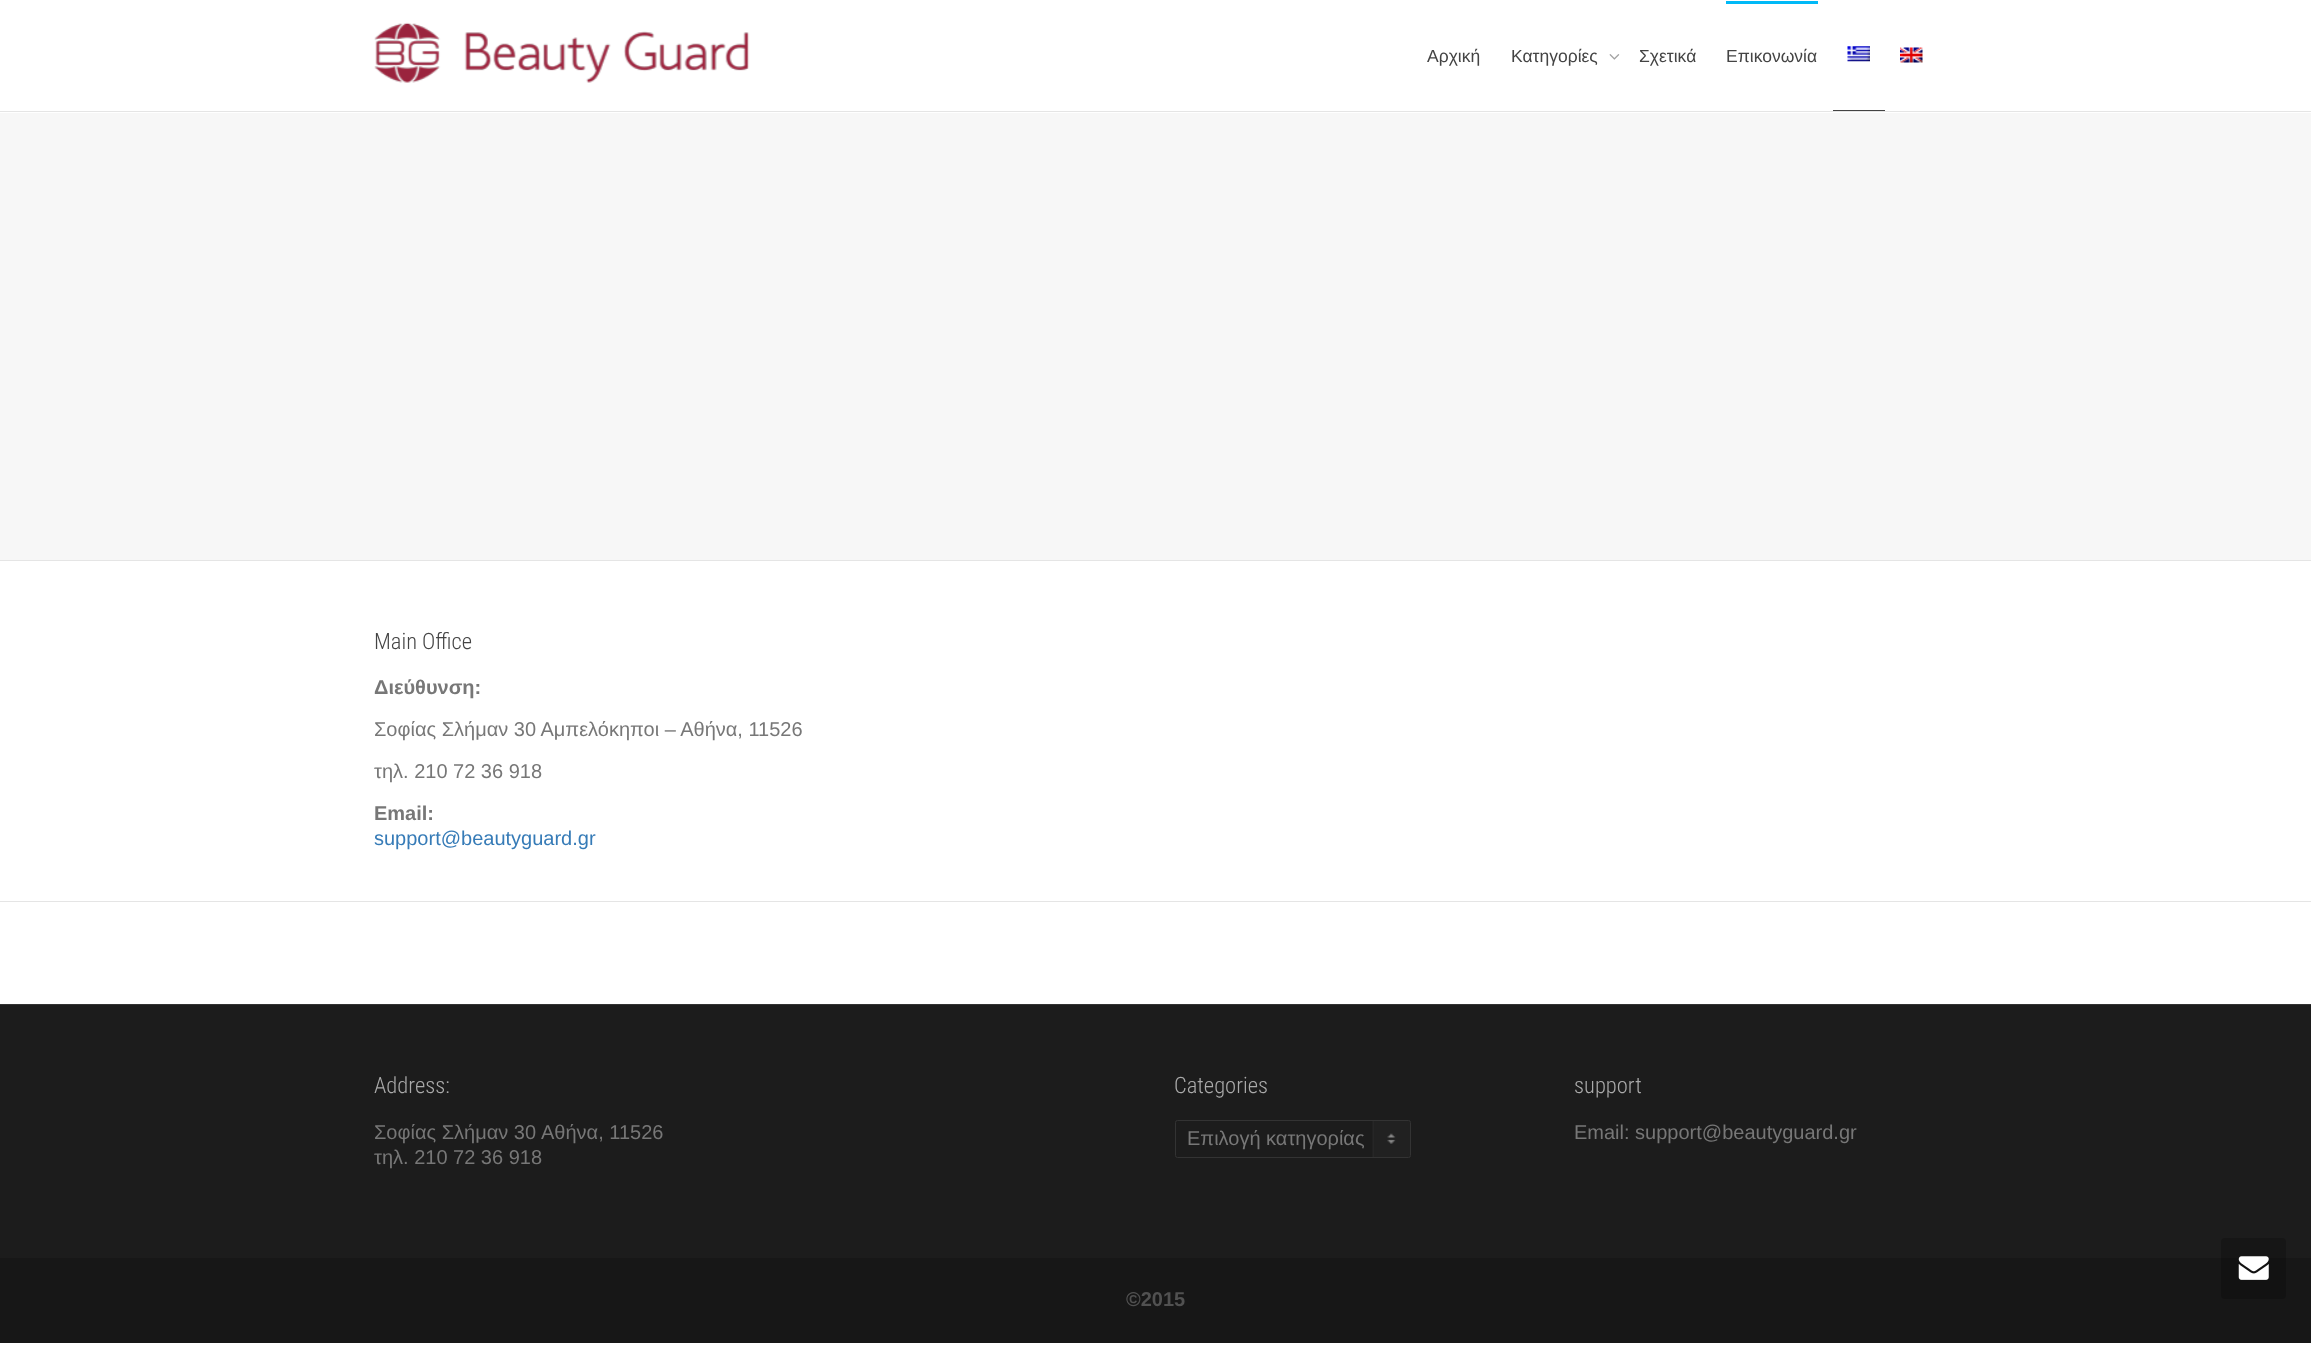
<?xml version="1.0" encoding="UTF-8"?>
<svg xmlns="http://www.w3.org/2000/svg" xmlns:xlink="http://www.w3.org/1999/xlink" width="2311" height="1361">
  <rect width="100%" height="100%" fill="#ffffff" />
  <rect y="111" width="2311" height="1" fill="#e5e5e5" />
  <image x="374" y="22" width="376" height="61" xlink:href="image1.png" />
  <image x="1609" y="54" width="11" height="6" xlink:href="image2.png" />
  <rect x="1726" y="1" width="92" height="3" fill="#00b9f7" />
  <rect x="1833" y="110" width="52" height="1" fill="#444444" />
  <image x="1847" y="46" width="23" height="16" xlink:href="image3.png" />
  <image x="1900" y="47" width="23" height="16" xlink:href="image4.png" />
  <rect y="560" width="2311" height="1" fill="#e5e5e5" />
  <rect y="113" width="2311" height="447" fill="#f7f7f7" />
  <rect y="901" width="2311" height="1" fill="#e5e5e5" />
  <rect y="1005" width="2311" height="253" fill="#1c1c1c" />
  <rect y="1004" width="2311" height="1" fill="#333333" />
  <image x="1372" y="1120" width="38" height="37" xlink:href="image5.png" />
  <rect x="1175.5" y="1120.5" width="235" height="37" rx="2" fill="none" stroke="#333333" />
  <rect y="1258" width="2311" height="85" fill="#171717" />
  <rect x="2221" y="1238" width="65" height="61" rx="4" fill="#000000" fill-opacity="0.2" />
  <image x="2238" y="1256" width="31" height="24" xlink:href="image6.png" />
  <text x="1427" y="62" style="font-family: Liberation Sans; font-size: 17.5px; fill: #444444">Αρχική</text>
  <text x="1511" y="62" style="font-family: Liberation Sans; font-size: 17.5px; fill: #444444">Κατηγορίες</text>
  <text x="1639" y="62" style="font-family: Liberation Sans; font-size: 17.5px; fill: #444444">Σχετικά</text>
  <text x="1726" y="62" style="font-family: Liberation Sans; font-size: 17.5px; fill: #444444">Επικονωνία</text>
  <text x="374" y="649" style="font-family: Roboto Condensed; font-size: 22.5px; font-weight: 300; fill: #444444">Main Office</text>
  <text x="374" y="694" style="font-family: Liberation Sans; font-size: 20px; font-weight: bold; fill: #777777">Διεύθυνση:</text>
  <text x="374" y="736" style="font-family: Liberation Sans; font-size: 20px; fill: #777777">Σοφίας Σλήμαν 30 Αμπελόκηποι – Αθήνα, 11526</text>
  <text x="374" y="778" style="font-family: Liberation Sans; font-size: 20px; fill: #777777">τηλ. 210 72 36 918</text>
  <text x="374" y="820" style="font-family: Liberation Sans; font-size: 20px; font-weight: bold; fill: #777777">Email:</text>
  <text x="374" y="845" style="font-family: Liberation Sans; font-size: 20px; fill: #367bb7">support@beautyguard.gr</text>
  <text x="374" y="1093" style="font-family: Roboto Condensed; font-size: 22.5px; font-weight: 300; fill: #aaaaaa">Address:</text>
  <text x="374" y="1139" style="font-family: Liberation Sans; font-size: 20px; fill: #777777">Σοφίας Σλήμαν 30</text>
  <text x="541" y="1139" style="font-family: Liberation Sans; font-size: 20px; fill: #777777">Αθήνα, 11526</text>
  <text x="374" y="1164" style="font-family: Liberation Sans; font-size: 20px; fill: #777777">τηλ. 210 72 36 918</text>
  <text x="1174" y="1093" style="font-family: Roboto Condensed; font-size: 22.5px; font-weight: 300; fill: #aaaaaa">Categories</text>
  <text x="1187" y="1145" style="font-family: Liberation Sans; font-size: 20px; fill: #777777">Επιλογή κατηγορίας</text>
  <text x="1574" y="1093" style="font-family: Roboto Condensed; font-size: 22.5px; font-weight: 300; fill: #aaaaaa">support</text>
  <text x="1574" y="1139" style="font-family: Liberation Sans; font-size: 20px; fill: #777777">Email: support@beautyguard.gr</text>
  <text x="1126" y="1306" style="font-family: Liberation Sans; font-size: 20px; font-weight: bold; fill: #515151">©2015</text>
</svg>
